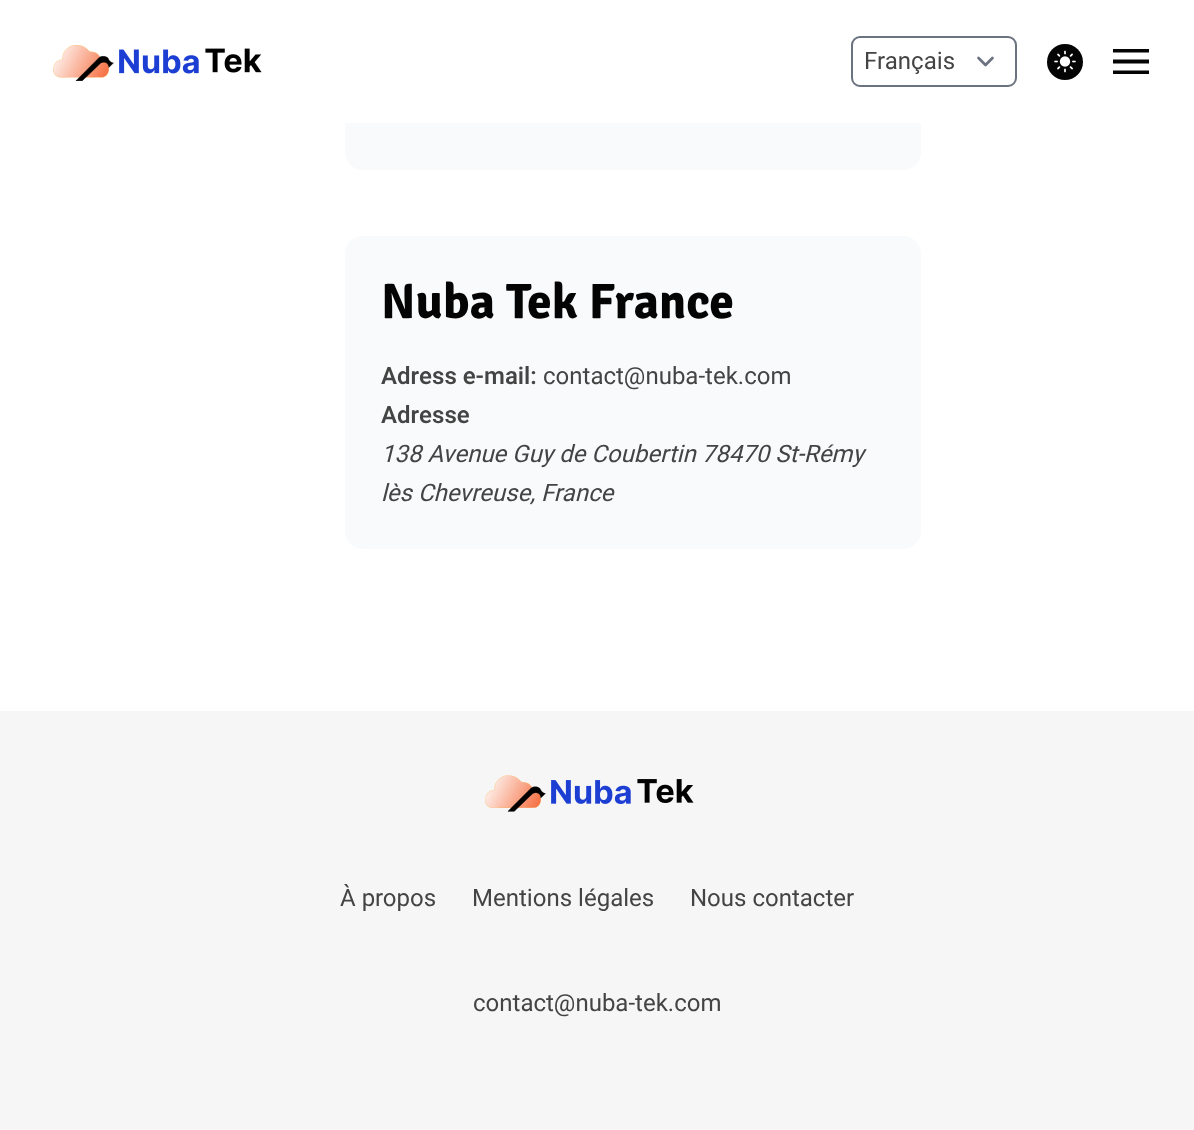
<?xml version="1.0" encoding="UTF-8"?>
<svg xmlns="http://www.w3.org/2000/svg" xmlns:xlink="http://www.w3.org/1999/xlink" width="1194" height="1130">
  <rect width="100%" height="100%" fill="#ffffff" />
  <rect x="345" y="-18" width="576" height="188" rx="18" fill="#f9fafb" />
  <rect x="345" width="576" height="123" fill="#ffffff" />
  <image x="53" y="45" width="209" height="36" xlink:href="image1.png" />
  <path d="M 978.5 58 l 7 7 l 7 -7" fill="none" stroke="#6b7280" stroke-width="2.7" stroke-linecap="round" stroke-linejoin="round" />
  <rect x="852" y="37" width="164" height="49" rx="8" fill="none" stroke="#6b7280" stroke-width="2" />
  <circle cx="1065" cy="62" r="18" fill="#040404" />
  <image x="1054" y="50" width="22" height="23" xlink:href="image2.png" />
  <path d="M 1113 49 h 36 v 3.5 h -36 z m 0 10.5 h 36 v 4 h -36 z m 0 11 h 36 v 3.5 h -36 v -30.5 z" fill="#040404" />
  <rect x="345" y="236" width="576" height="313" rx="18" fill="#f9fafb" />
  <rect y="711" width="1194" height="419" fill="#f6f6f6" />
  <image x="485" y="775" width="209" height="37" xlink:href="image3.png" />
  <text x="864" y="69" style="font-family: Heebo; font-size: 24px; fill: #444444">Français</text>
  <text x="381" y="318" style="font-family: Signika; font-size: 49.75px; font-weight: bold; fill: #040404">Nuba Tek France</text>
  <text x="381" y="384" style="font-family: Heebo; font-size: 24px; font-weight: 600; fill: #444444">Adress e-mail:</text>
  <text x="543" y="384" style="font-family: Heebo; font-size: 24px; fill: #444444">contact@nuba-tek.com</text>
  <text x="381" y="423" style="font-family: Heebo; font-size: 24px; font-weight: 600; fill: #444444">Adresse</text>
  <text x="381" y="462" style="font-family: Heebo; font-size: 24px; font-style: italic; fill: #444444">138 Avenue Guy de Coubertin 78470 St-Rémy</text>
  <text x="381" y="501" style="font-family: Heebo; font-size: 24px; font-style: italic; fill: #444444">lès Chevreuse, France</text>
  <text x="340" y="906" style="font-family: Heebo; font-size: 24px; fill: #444444">À propos</text>
  <text x="472" y="906" style="font-family: Heebo; font-size: 24px; fill: #444444">Mentions légales</text>
  <text x="690" y="906" style="font-family: Heebo; font-size: 24px; fill: #444444">Nous contacter</text>
  <text x="473" y="1011" style="font-family: Heebo; font-size: 24px; fill: #444444">contact@nuba-tek.com</text>
</svg>
